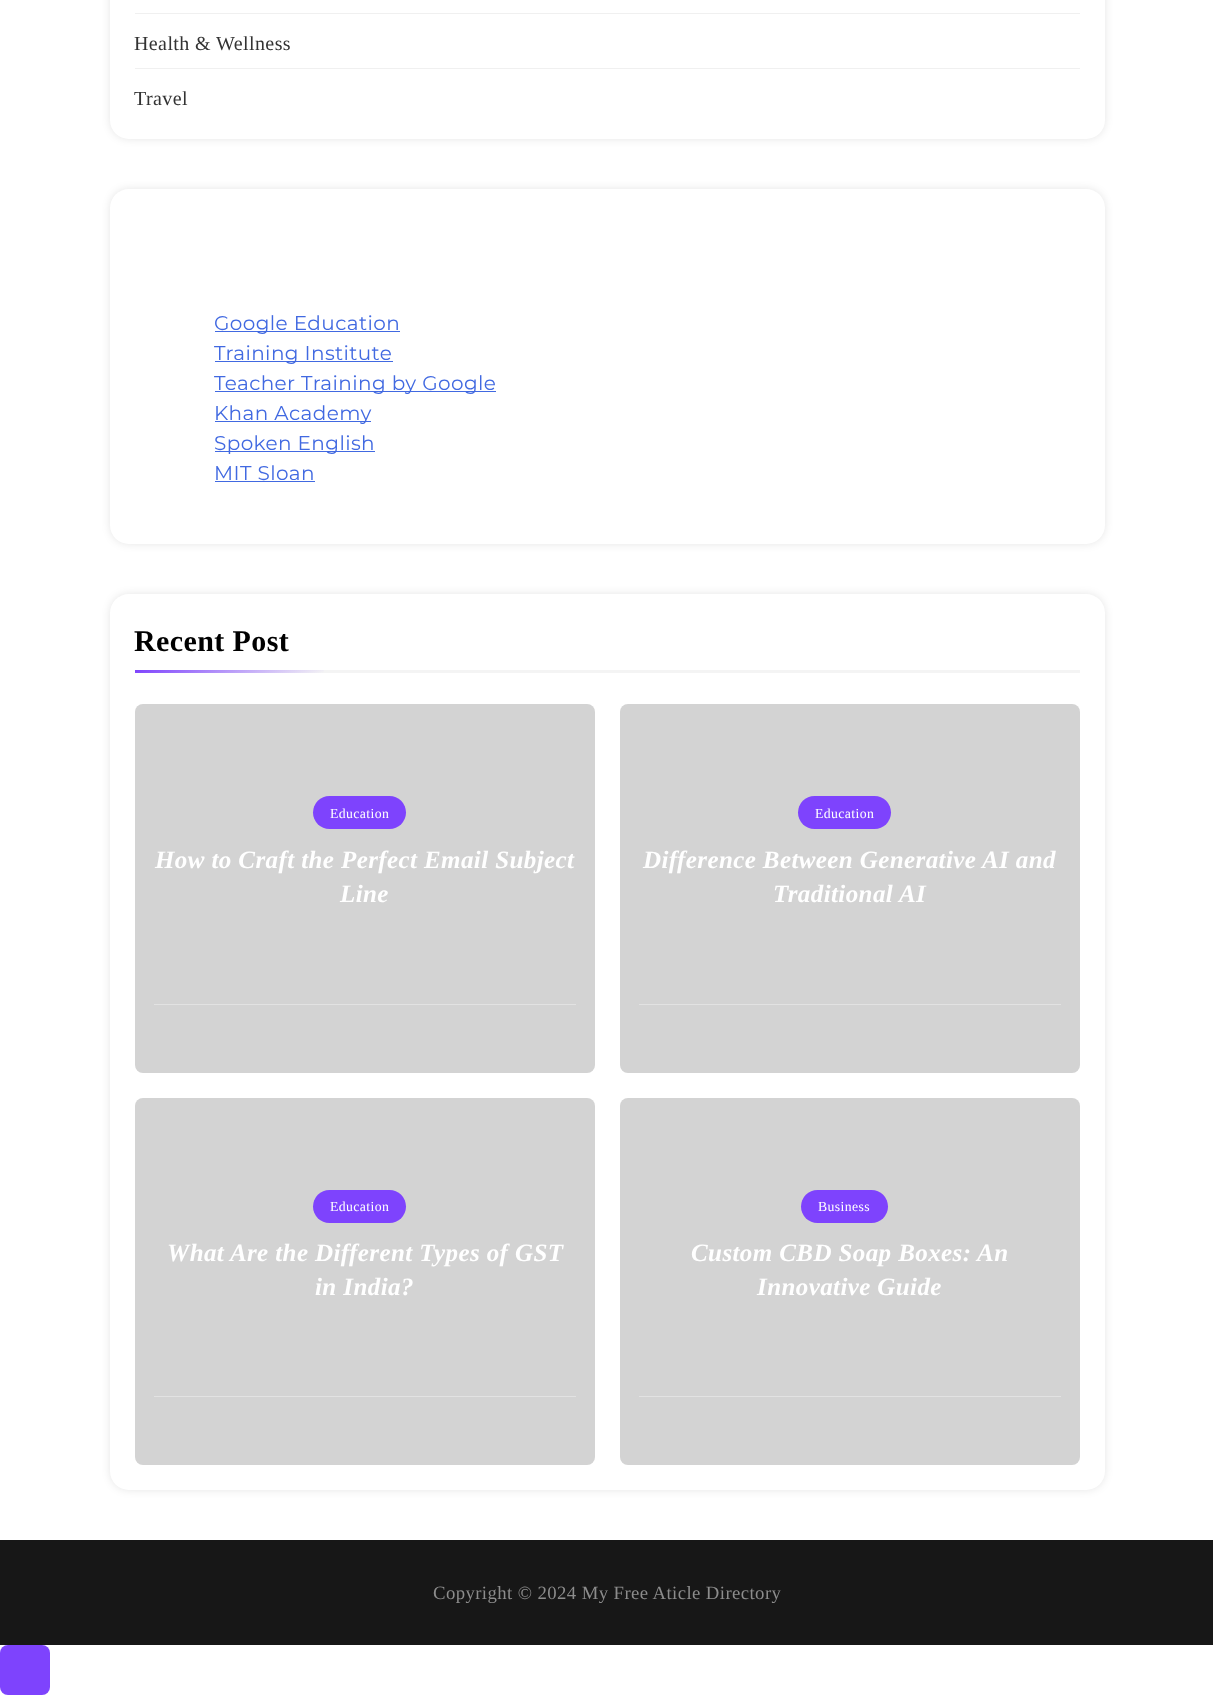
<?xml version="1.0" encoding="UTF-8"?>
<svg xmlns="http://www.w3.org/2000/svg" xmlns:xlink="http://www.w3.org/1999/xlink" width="1213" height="1695">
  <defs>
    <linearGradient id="g1" gradientUnits="userSpaceOnUse" x1="218" y1="640" x2="241" y2="703"><stop offset="0" stop-color="#7e43fd" /><stop offset="1" stop-color="#f4f4f4" /></linearGradient>
  </defs>
  <rect width="100%" height="100%" fill="#ffffff" />
  <rect x="110" y="-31" width="995" height="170" rx="19" fill="#000000" fill-opacity="0.1" filter="blur(4px)" />
  <rect x="110" y="-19" width="995" height="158" rx="19" fill="#ffffff" />
  <rect x="135" y="13" width="945" height="1" fill="#f0f0f0" />
  <rect x="135" y="68" width="945" height="1" fill="#f0f0f0" />
  <rect x="110" y="189" width="995" height="355" rx="19" fill="#000000" fill-opacity="0.1" filter="blur(4px)" />
  <rect x="110" y="189" width="995" height="355" rx="19" fill="#ffffff" />
  <rect x="215" y="331" width="185" height="1" fill="#4169e1" />
  <rect x="215" y="361" width="178" height="1" fill="#4169e1" />
  <rect x="215" y="391" width="281" height="1" fill="#4169e1" />
  <rect x="215" y="421" width="156" height="1" fill="#4169e1" />
  <rect x="215" y="451" width="160" height="1" fill="#4169e1" />
  <rect x="215" y="481" width="100" height="1" fill="#4169e1" />
  <rect x="110" y="594" width="995" height="896" rx="19" fill="#000000" fill-opacity="0.1" filter="blur(4px)" />
  <rect x="110" y="594" width="995" height="896" rx="19" fill="#ffffff" />
  <rect x="324" y="670" width="756" height="3" fill="#f4f4f4" />
  <rect x="135" y="670" width="189" height="3" fill="url(#g1)" />
  <rect x="135" y="704" width="460" height="369" rx="8" fill="#d3d3d3" />
  <rect x="313" y="796" width="93" height="33" rx="16.5" fill="#7e43fd" />
  <rect x="154" y="1004" width="422" height="1" fill="#e2e2e2" />
  <rect x="620" y="704" width="460" height="369" rx="8" fill="#d3d3d3" />
  <rect x="798" y="796" width="93" height="33" rx="16.5" fill="#7e43fd" />
  <rect x="639" y="1004" width="422" height="1" fill="#e2e2e2" />
  <rect x="135" y="1098" width="460" height="367" rx="8" fill="#d3d3d3" />
  <rect x="313" y="1190" width="93" height="33" rx="16.5" fill="#7e43fd" />
  <rect x="154" y="1396" width="422" height="1" fill="#e2e2e2" />
  <rect x="620" y="1098" width="460" height="367" rx="8" fill="#d3d3d3" />
  <rect x="801" y="1190" width="87" height="33" rx="16.5" fill="#7e43fd" />
  <rect x="639" y="1396" width="422" height="1" fill="#e2e2e2" />
  <rect y="1540" width="1213" height="105" fill="#171717" />
  <rect y="1645" width="50" height="50" rx="8" fill="#7e43fd" />
  <text x="134" y="50" style="font-family: Liberation Serif; font-size: 20px; letter-spacing: 0.4px; fill: #333333">Health &amp; Wellness</text>
  <text x="134" y="105" style="font-family: Liberation Serif; font-size: 20px; letter-spacing: 0.4px; fill: #333333">Travel</text>
  <text x="214" y="330" style="font-family: Montserrat; font-size: 20px; letter-spacing: 0.4px; fill: #4169e1">Google Education</text>
  <text x="214" y="360" style="font-family: Montserrat; font-size: 20px; letter-spacing: 0.4px; fill: #4169e1">Training Institute</text>
  <text x="214" y="390" style="font-family: Montserrat; font-size: 20px; letter-spacing: 0.4px; fill: #4169e1">Teacher Training by Google</text>
  <text x="214" y="420" style="font-family: Montserrat; font-size: 20px; letter-spacing: 0.4px; fill: #4169e1">Khan Academy</text>
  <text x="214" y="450" style="font-family: Montserrat; font-size: 20px; letter-spacing: 0.4px; fill: #4169e1">Spoken English</text>
  <text x="214" y="480" style="font-family: Montserrat; font-size: 20px; letter-spacing: 0.4px; fill: #4169e1">MIT Sloan</text>
  <text x="134" y="651" style="font-family: Liberation Serif; font-size: 30px; font-weight: bold; letter-spacing: 0.4px; fill: #000000">Recent Post</text>
  <text x="330" y="818" style="font-family: Liberation Serif; font-size: 13.75px; letter-spacing: 0.4px; fill: #ffffff">Education</text>
  <text x="155" y="868" style="font-family: Liberation Serif; font-size: 25px; font-weight: bold; font-style: italic; letter-spacing: 0.4px; fill: #ffffff">How to Craft the Perfect Email Subject</text>
  <text x="340" y="902" style="font-family: Liberation Serif; font-size: 25px; font-weight: bold; font-style: italic; letter-spacing: 0.4px; fill: #ffffff">Line</text>
  <text x="815" y="818" style="font-family: Liberation Serif; font-size: 13.75px; letter-spacing: 0.4px; fill: #ffffff">Education</text>
  <text x="643" y="868" style="font-family: Liberation Serif; font-size: 25px; font-weight: bold; font-style: italic; letter-spacing: 0.4px; fill: #ffffff">Difference Between Generative AI and</text>
  <text x="773" y="902" style="font-family: Liberation Serif; font-size: 25px; font-weight: bold; font-style: italic; letter-spacing: 0.4px; fill: #ffffff">Traditional AI</text>
  <text x="330" y="1211" style="font-family: Liberation Serif; font-size: 13.75px; letter-spacing: 0.4px; fill: #ffffff">Education</text>
  <text x="167" y="1261" style="font-family: Liberation Serif; font-size: 25px; font-weight: bold; font-style: italic; letter-spacing: 0.4px; fill: #ffffff">What Are the Different Types of GST</text>
  <text x="315" y="1295" style="font-family: Liberation Serif; font-size: 25px; font-weight: bold; font-style: italic; letter-spacing: 0.4px; fill: #ffffff">in India?</text>
  <text x="818" y="1211" style="font-family: Liberation Serif; font-size: 13.75px; letter-spacing: 0.4px; fill: #ffffff">Business</text>
  <text x="691" y="1261" style="font-family: Liberation Serif; font-size: 25px; font-weight: bold; font-style: italic; letter-spacing: 0.4px; fill: #ffffff">Custom CBD Soap Boxes: An</text>
  <text x="757" y="1295" style="font-family: Liberation Serif; font-size: 25px; font-weight: bold; font-style: italic; letter-spacing: 0.4px; fill: #ffffff">Innovative Guide</text>
  <text x="433" y="1599" style="font-family: Liberation Serif; font-size: 18.75px; letter-spacing: 0.4px; fill: #8c8c8c">Copyright © 2024 My Free Aticle Directory</text>
</svg>
